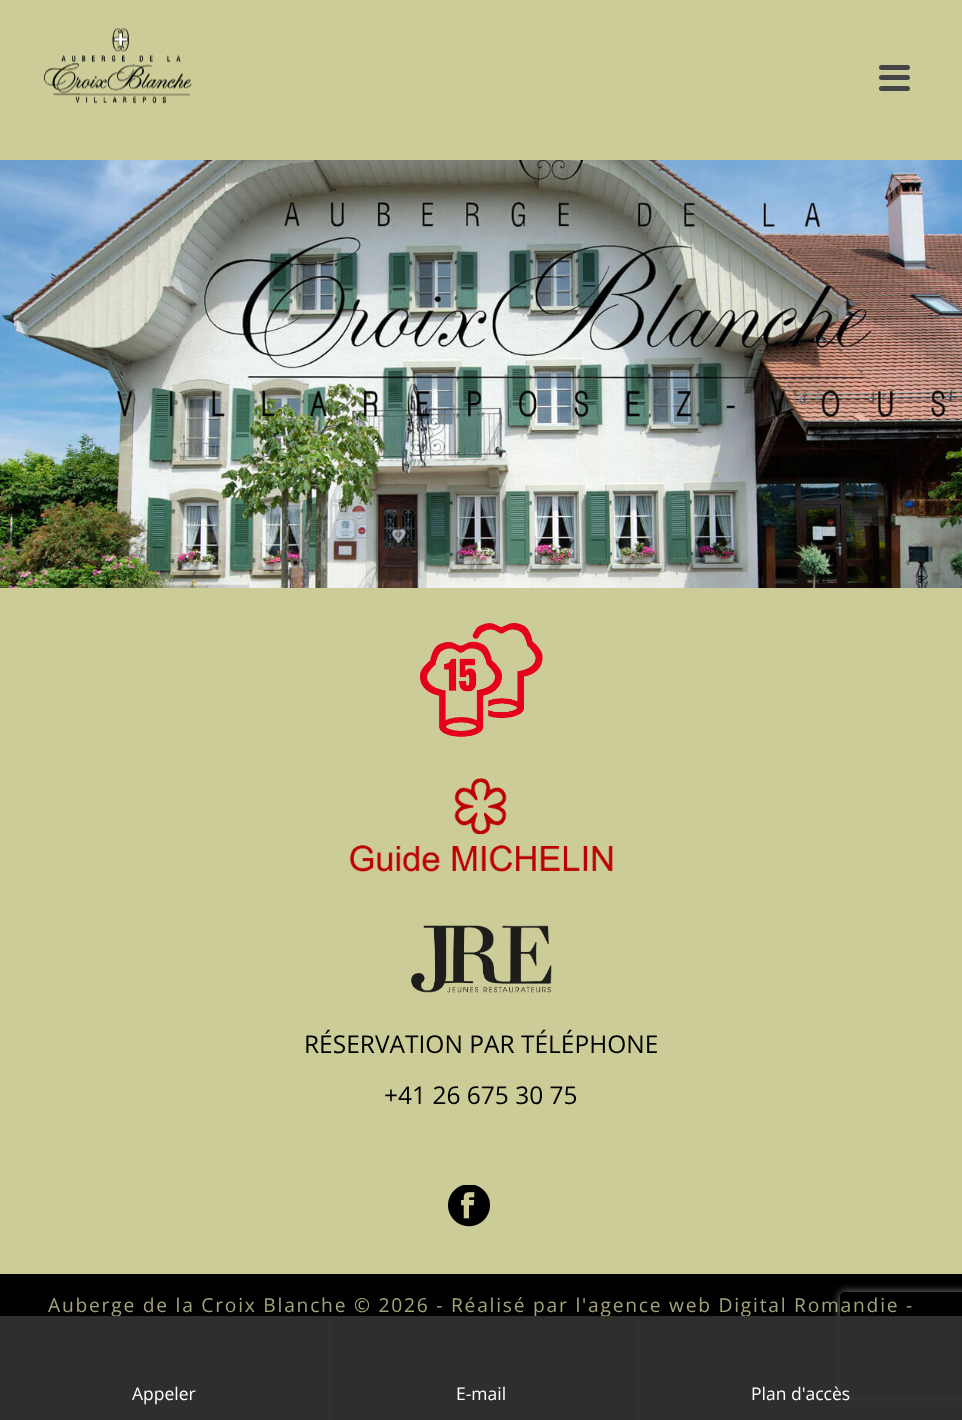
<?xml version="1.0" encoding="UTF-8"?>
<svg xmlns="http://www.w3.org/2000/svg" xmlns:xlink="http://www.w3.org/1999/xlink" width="962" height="1420">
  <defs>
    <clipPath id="clip1"><path d="M 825 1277 h 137 v 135 h -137 z m 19 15 h 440 c 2 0 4 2 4 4 v 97 c 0 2 -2 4 -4 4 h -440 c -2 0 -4 -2 -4 -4 v -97 c 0 -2 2 -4 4 -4 z" clip-rule="evenodd" /></clipPath>
  </defs>
  <rect width="100%" height="100%" fill="#cccc99" />
  <image x="43" y="28" width="149" height="76" xlink:href="image1.png" />
  <rect x="879" y="65" width="31" height="5" rx="2.5" fill="#444444" />
  <rect x="879" y="75" width="31" height="5" rx="2.5" fill="#444444" />
  <rect x="879" y="86" width="31" height="5" rx="2.5" fill="#444444" />
  <image x="0" y="160" width="962" height="428" xlink:href="image2.png" />
  <image x="420" y="623" width="123" height="114" xlink:href="image3.png" />
  <image x="350" y="778" width="263" height="94" xlink:href="image4.png" />
  <image x="411" y="925" width="141" height="68" xlink:href="image5.png" />
  <image x="448" y="1185" width="42" height="42" xlink:href="image6.png" />
  <rect y="1274" width="962" height="146" fill="#000000" />
  <g clip-path="url(#clip1)">
    <rect x="840" y="1292" width="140" height="105" rx="4" fill="#808080" filter="blur(4.5px)" />
  </g>
  <text x="304" y="1053" style="font-family: Open Sans; font-size: 24.5px; fill: #000000">RÉSERVATION PAR TÉLÉPHONE</text>
  <text x="384" y="1104" style="font-family: Open Sans; font-size: 24.5px; fill: #000000">+41 26 675 30 75</text>
  <text x="48" y="1312" style="font-family: Open Sans; font-size: 19.25px; letter-spacing: 1.75px; fill: #a3a37a">Auberge de la Croix Blanche © 2026 - Réalisé par l'agence web Digital Romandie -</text>
  <rect y="1316" width="962" height="104" fill="#333333" fill-opacity="0.9" />
  <rect x="329" y="1316" width="2" height="104" fill="#333333" />
  <text x="132" y="1400" style="font-family: Open Sans; font-size: 17.5px; fill: #ffffff">Appeler</text>
  <rect x="637" y="1316" width="2" height="104" fill="#333333" />
  <text x="456" y="1400" style="font-family: Open Sans; font-size: 17.5px; fill: #ffffff">E-mail</text>
  <text x="751" y="1400" style="font-family: Open Sans; font-size: 17.5px; fill: #ffffff">Plan d'accès</text>
</svg>
